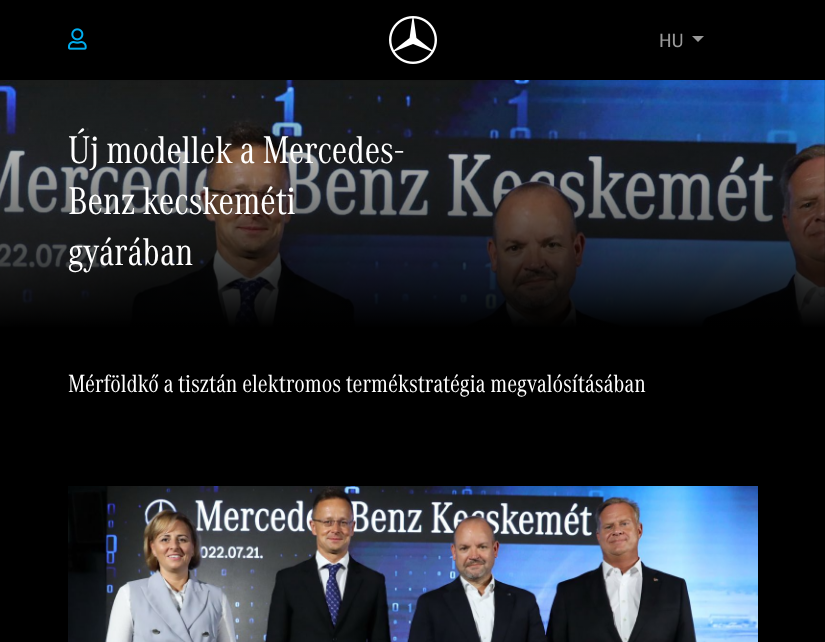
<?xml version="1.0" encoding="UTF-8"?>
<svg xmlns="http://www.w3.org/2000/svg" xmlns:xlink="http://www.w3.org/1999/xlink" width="825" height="642">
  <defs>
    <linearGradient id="g1" gradientUnits="userSpaceOnUse" x1="413" y1="80" x2="413" y2="328"><stop offset="0" stop-color="#000000" stop-opacity="0" /><stop offset="1" stop-color="#000000" /></linearGradient>
  </defs>
  <rect width="100%" height="100%" fill="#000000" />
  <image x="68" y="28" width="19" height="22" xlink:href="image1.png" />
  <image x="389" y="16" width="48" height="48" xlink:href="image2.png" />
  <path d="M 692 36 h 12 l -6 6 z" fill="#999999" />
  <image x="0" y="80" width="825" height="247" xlink:href="image3.png" />
  <rect y="85" width="825" height="242" fill="url(#g1)" />
  <image x="68" y="486" width="690" height="156" xlink:href="image4.png" />
  <text x="659" y="47" style="font-family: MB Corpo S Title; font-size: 20px; fill: #999999">HU</text>
  <text x="68" y="163" style="font-family: 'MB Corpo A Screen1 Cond'; font-size: 40.1px; fill: #ffffff">Új modellek a Mercedes-</text>
  <text x="68" y="214" style="font-family: 'MB Corpo A Screen1 Cond'; font-size: 40.1px; fill: #ffffff">Benz kecskeméti</text>
  <text x="68" y="265" style="font-family: 'MB Corpo A Screen1 Cond'; font-size: 40.1px; fill: #ffffff">gyárában</text>
  <text x="68" y="392" style="font-family: 'MB Corpo A Screen1 Cond'; font-size: 25.75px; fill: #ffffff">Mérföldkő a tisztán elektromos termékstratégia megvalósításában</text>
</svg>
